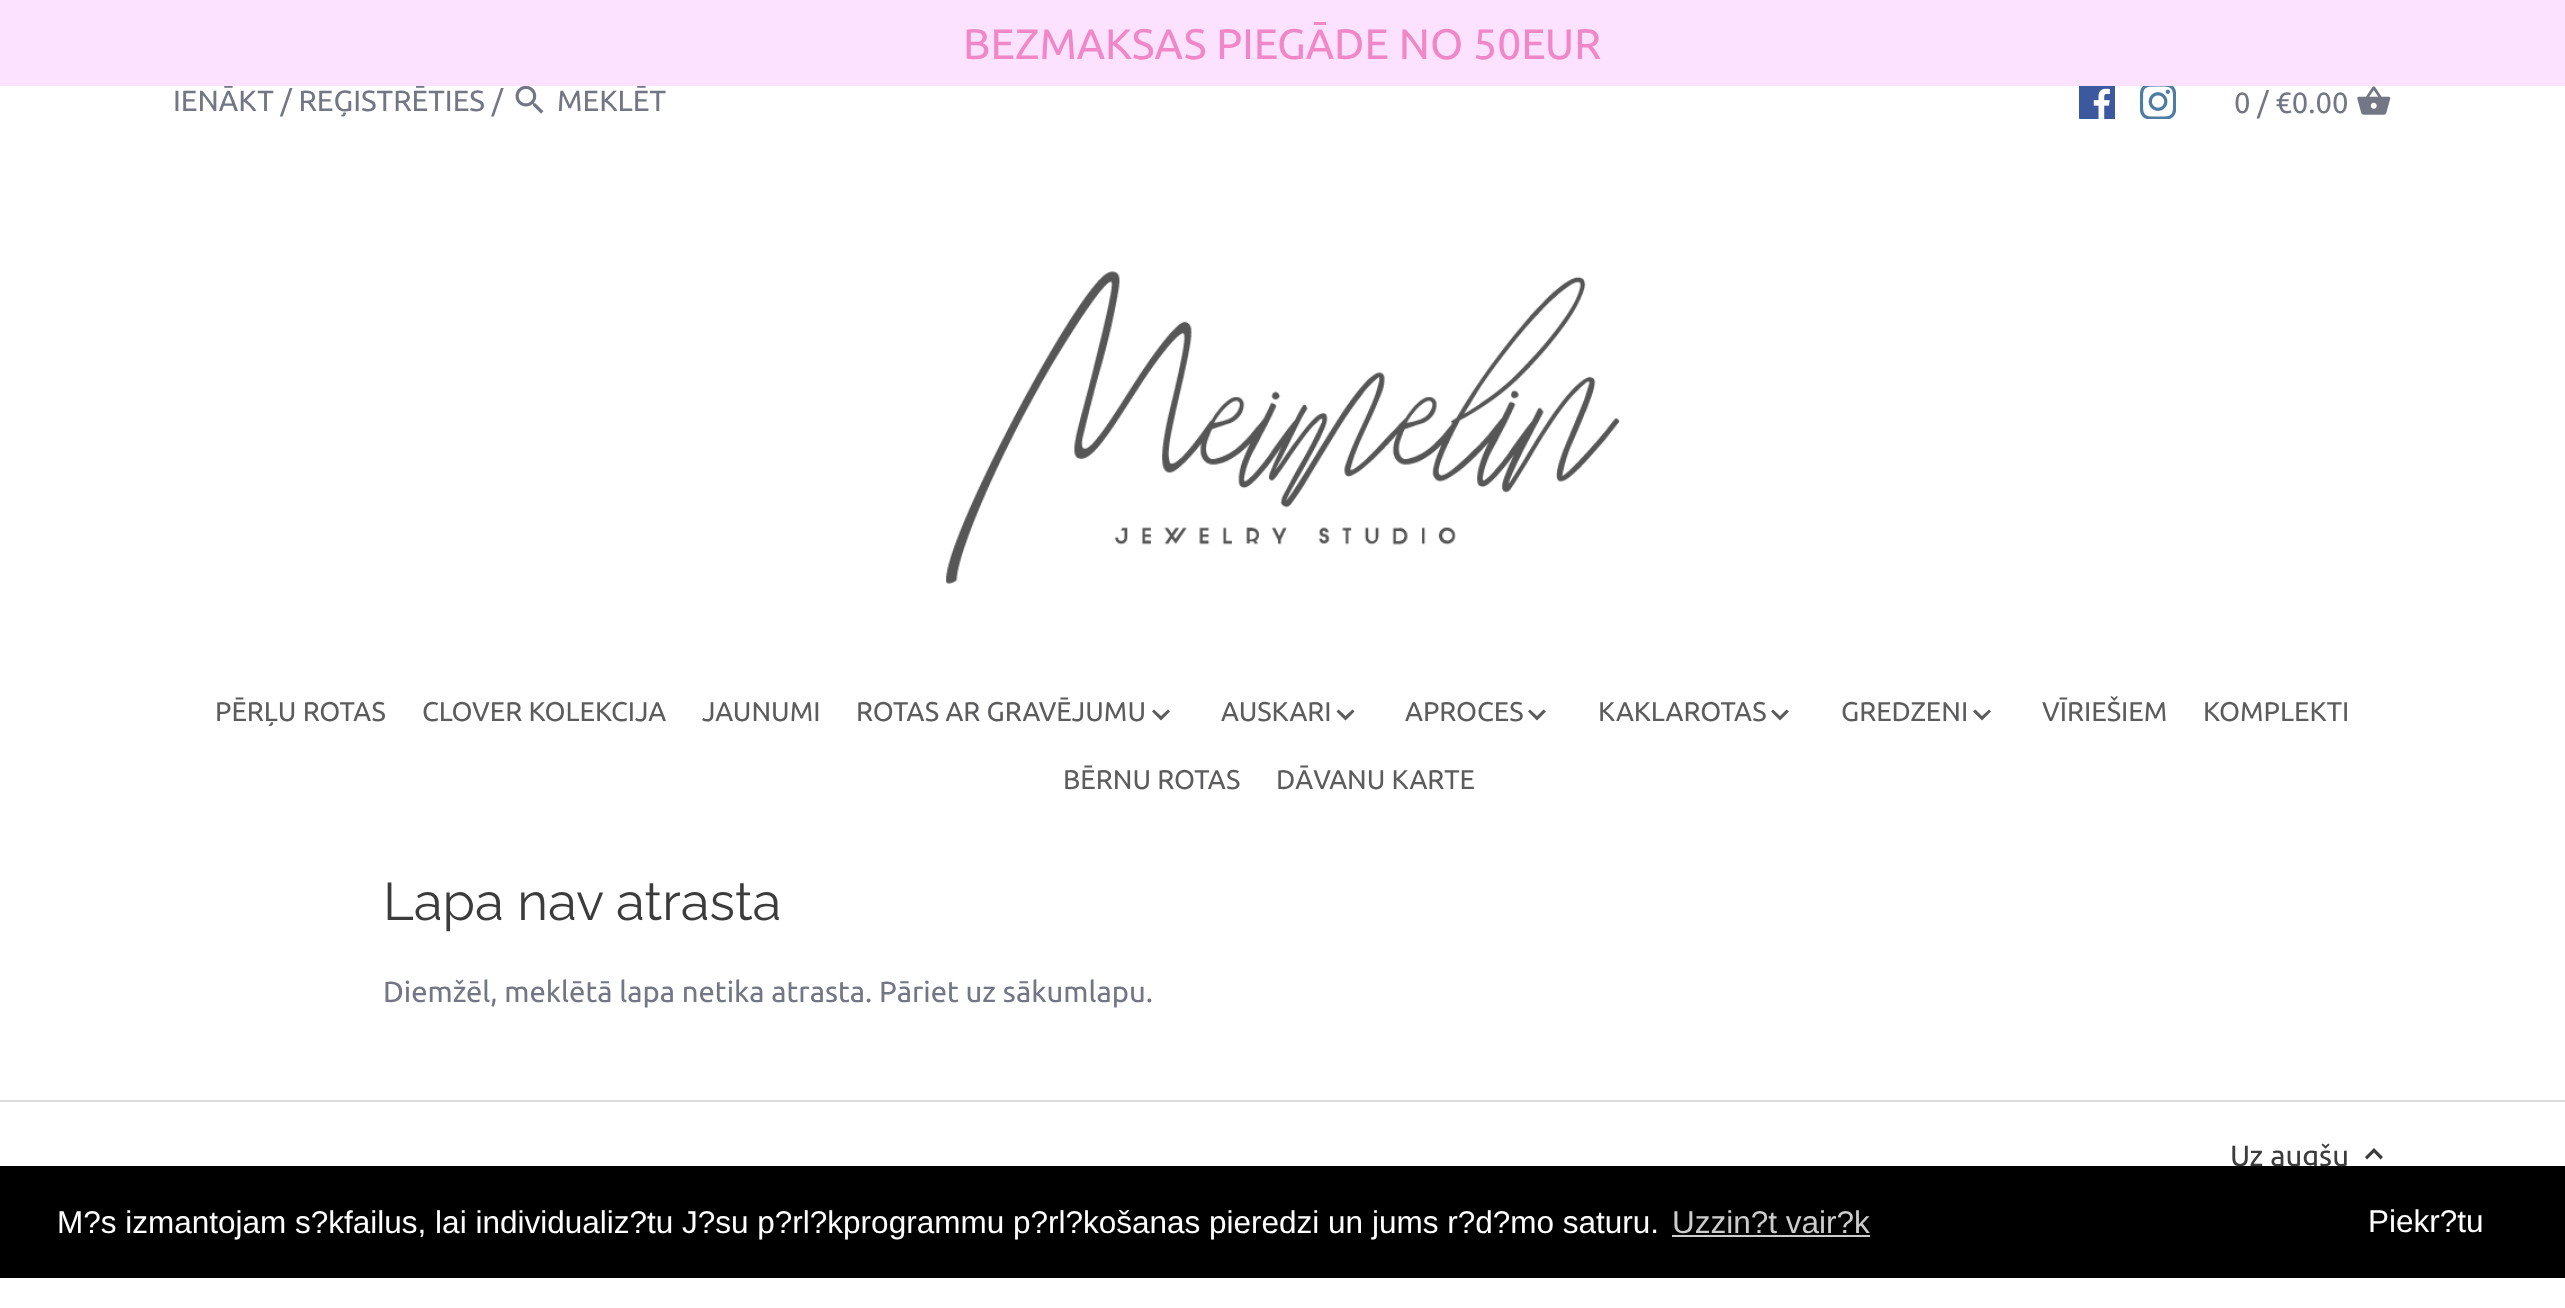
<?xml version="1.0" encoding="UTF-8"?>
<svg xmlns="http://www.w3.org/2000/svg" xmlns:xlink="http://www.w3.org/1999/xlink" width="2565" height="1308">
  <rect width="100%" height="100%" fill="#ffffff" />
  <image x="515" y="86" width="29" height="28" xlink:href="image1.png" />
  <image x="2079" y="86" width="36" height="33" xlink:href="image2.png" />
  <image x="2140" y="86" width="36" height="33" xlink:href="image3.png" />
  <image x="2357" y="86" width="34" height="29" xlink:href="image4.png" />
  <image x="945" y="271" width="675" height="313" xlink:href="image5.png" />
  <path d="M 1154 709.5 l 7 6.5 l 7 -6.5 l 2 2 l -9 9 l -9 -9 z" fill="#5c5c5f" />
  <path d="M 1338.5 709.5 l 7 6.5 l 7 -6.5 l 2 2 l -9 9 l -9 -9 z" fill="#5c5c5f" />
  <path d="M 1530 709.5 l 7 6.5 l 6.5 -6.5 l 2.5 2 l -9 9 l -9 -9 z" fill="#5c5c5f" />
  <path d="M 1773 709.5 l 7 6.5 l 6.5 -6.5 l 2.5 2 l -9 9 l -9 -9 z" fill="#5c5c5f" />
  <path d="M 1975.5 709.5 l 6.5 6.5 l 7 -6.5 l 2 2 l -9 9 l -9 -9 z" fill="#5c5c5f" />
  <rect y="1100" width="2565" height="2" fill="#dddddd" />
  <path d="M 2367 1159.5 l 7 -7 l 6.5 7 l 2.5 -2.5 l -9 -9 l -9 9 z" fill="#3c3c3c" />
  <text x="173" y="111" style="font-family: Ubuntu; font-size: 29.25px; fill: #727685">IENĀKT / REĢISTRĒTIES /</text>
  <text x="557" y="111" style="font-family: Ubuntu; font-size: 29.25px; fill: #727685">MEKLĒT</text>
  <rect width="2565" height="86" fill="#fde2ff" />
  <text x="963" y="59" style="font-family: Ubuntu; font-size: 42.75px; fill: #f088c8">BEZMAKSAS PIEGĀDE NO 50EUR</text>
  <text x="2234" y="113" style="font-family: Ubuntu; font-size: 29.25px; fill: #727685">0 / €0.00</text>
  <text x="215" y="721" style="font-family: Ubuntu; font-size: 27px; fill: #5c5c5f">PĒRĻU ROTAS</text>
  <text x="422" y="721" style="font-family: Ubuntu; font-size: 27px; fill: #5c5c5f">CLOVER KOLEKCIJA</text>
  <text x="702" y="721" style="font-family: Ubuntu; font-size: 27px; fill: #5c5c5f">JAUNUMI</text>
  <text x="856" y="721" style="font-family: Ubuntu; font-size: 27px; fill: #5c5c5f">ROTAS AR GRAVĒJUMU</text>
  <text x="1221" y="721" style="font-family: Ubuntu; font-size: 27px; fill: #5c5c5f">AUSKARI</text>
  <text x="1405" y="721" style="font-family: Ubuntu; font-size: 27px; fill: #5c5c5f">APROCES</text>
  <text x="1598" y="721" style="font-family: Ubuntu; font-size: 27px; fill: #5c5c5f">KAKLAROTAS</text>
  <text x="1841" y="721" style="font-family: Ubuntu; font-size: 27px; fill: #5c5c5f">GREDZENI</text>
  <text x="2042" y="721" style="font-family: Ubuntu; font-size: 27px; fill: #5c5c5f">VĪRIEŠIEM</text>
  <text x="2203" y="721" style="font-family: Ubuntu; font-size: 27px; fill: #5c5c5f">KOMPLEKTI</text>
  <text x="1063" y="789" style="font-family: Ubuntu; font-size: 27px; fill: #5c5c5f">BĒRNU ROTAS</text>
  <text x="1276" y="789" style="font-family: Ubuntu; font-size: 27px; fill: #5c5c5f">DĀVANU KARTE</text>
  <text x="383" y="920" style="font-family: Raleway; font-size: 52.75px; fill: #3c3c3c">Lapa nav atrasta</text>
  <text x="383" y="1002" style="font-family: Ubuntu; font-size: 29.25px; fill: #727685">Diemžēl, meklētā lapa netika atrasta. Pāriet uz sākumlapu.</text>
  <text x="2230" y="1166" style="font-family: Ubuntu; font-size: 29.25px; fill: #3c3c3c">Uz augšu</text>
  <rect y="1166" width="2565" height="112" fill="#000000" />
  <text x="57" y="1233" style="font-family: Liberation Sans; font-size: 31.5px; fill: #ffffff">M?s izmantojam s?kfailus, lai individualiz?tu J?su p?rl?kprogrammu p?rl?košanas pieredzi un jums r?d?mo saturu.</text>
  <text x="1672" y="1233" style="font-family: Liberation Sans; font-size: 31.5px; fill: #cccccc">Uzzin?t vair?k</text>
  <rect x="1672" y="1235" width="198" height="2" fill="#cccccc" />
  <text x="2368" y="1232" style="font-family: Liberation Sans; font-size: 31.5px; fill: #ffffff">Piekr?tu</text>
</svg>
